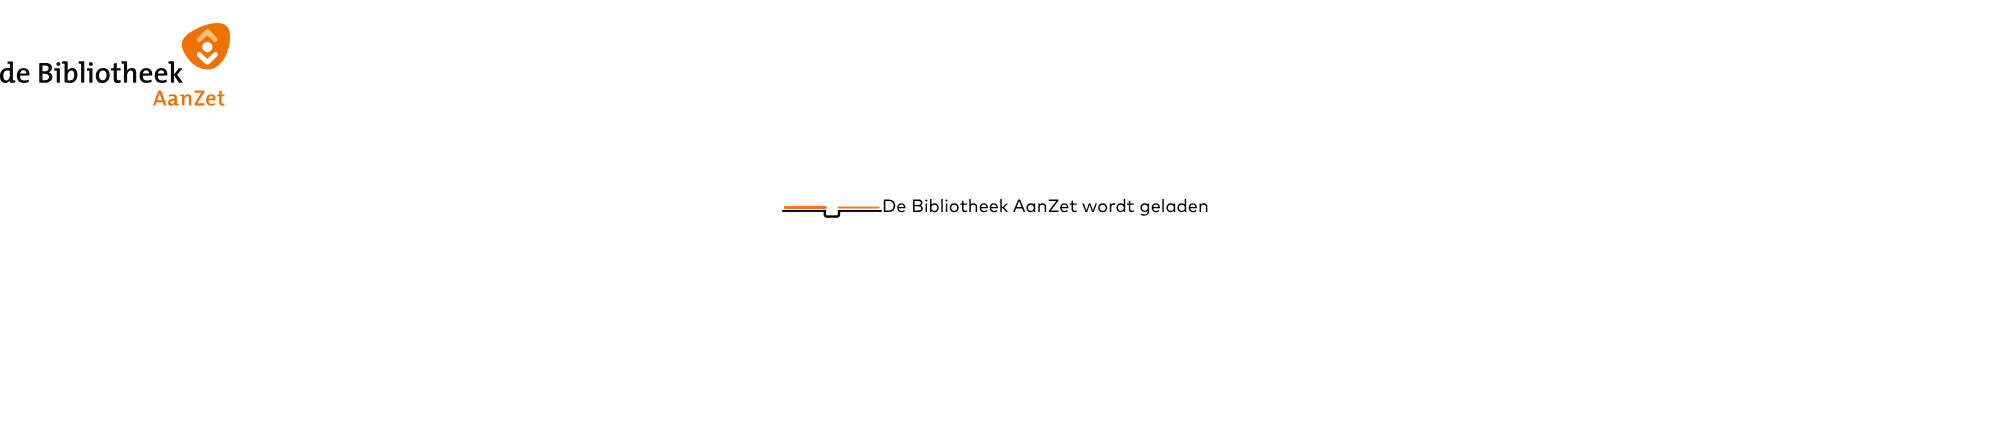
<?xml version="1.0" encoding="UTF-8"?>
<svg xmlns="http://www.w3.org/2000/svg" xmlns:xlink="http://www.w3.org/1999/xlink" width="1991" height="424">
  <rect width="100%" height="100%" fill="#ffffff" />
  <image x="0" y="23" width="231" height="83" xlink:href="image1.png" />
  <image x="782" y="206" width="100" height="12" xlink:href="image2.png" />
  <text x="882" y="212" style="font-family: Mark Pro; font-size: 18px; fill: #000000">De Bibliotheek AanZet wordt geladen</text>
</svg>
